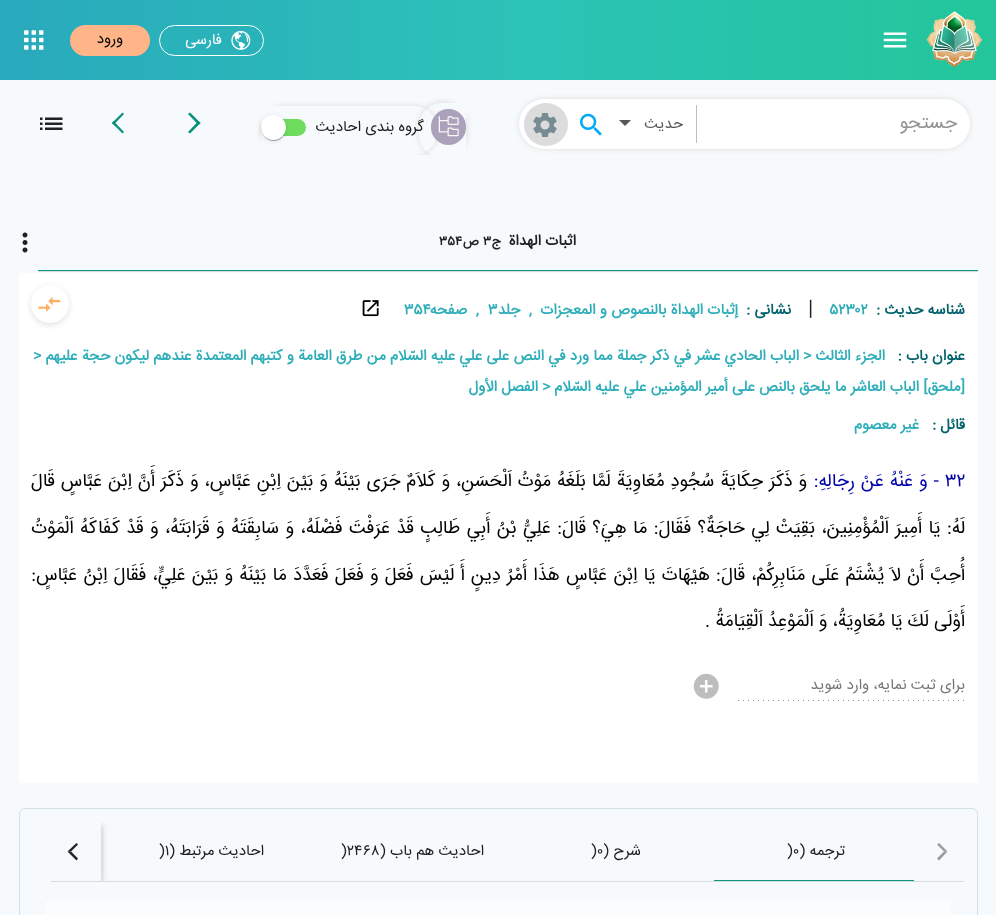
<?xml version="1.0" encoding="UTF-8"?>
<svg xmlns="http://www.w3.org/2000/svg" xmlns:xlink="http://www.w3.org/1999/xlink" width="996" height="915">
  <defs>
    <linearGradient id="g1" gradientUnits="userSpaceOnUse" x1="0" y1="40" x2="996" y2="40"><stop offset="0" stop-color="#29a9bd" /><stop offset="0.53" stop-color="#2cc3b7" /><stop offset="1" stop-color="#23c69a" /></linearGradient>
    <clipPath id="clip1"><rect x="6" y="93" width="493" height="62" /></clipPath>
    <clipPath id="clip2"><path d="M 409 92 h 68 v 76 h -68 z m 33.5 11 h 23.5 v 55 h -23.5 c -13 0 -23.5 -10.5 -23.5 -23.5 v -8 c 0 -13 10.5 -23.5 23.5 -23.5 z" clip-rule="evenodd" /></clipPath>
    <clipPath id="clip3"><path d="M 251 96 h 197 v 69 h -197 z m 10 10 h 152.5 c 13.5 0 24.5 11 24.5 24.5 c 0 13.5 -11 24.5 -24.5 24.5 h -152.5 z" clip-rule="evenodd" /></clipPath>
    <clipPath id="clip4"><rect x="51" y="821" width="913" height="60" /></clipPath>
    <clipPath id="clip5"><rect x="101" y="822" width="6" height="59" /></clipPath>
    <clipPath id="clip6"><rect x="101" y="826" width="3" height="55" /></clipPath>
    <clipPath id="clip7"><rect x="738" y="679" width="227" height="16" /></clipPath>
  </defs>
  <rect width="100%" height="100%" fill="#ffffff" />
  <rect width="996" height="80" fill="url(#g1)" />
  <image x="926" y="11" width="57" height="57" xlink:href="image1.png" />
  <image x="883" y="32" width="24" height="16" xlink:href="image2.png" />
  <rect x="159.5" y="25.5" width="104" height="30" rx="15" fill="#2ab2bb" stroke="#ffffff" />
  <image x="231" y="30" width="20" height="20" xlink:href="image3.png" />
  <rect x="70" y="25" width="80" height="31" rx="15.5" fill="#ffb587" />
  <image x="24" y="30" width="20" height="20" xlink:href="image4.png" />
  <rect y="80" width="996" height="835" fill="#f7fafc" />
  <rect x="518" y="98" width="453" height="52" rx="26" fill="#e4e4e4" filter="blur(2px)" />
  <rect x="519" y="99" width="451" height="50" rx="25" fill="#ffffff" />
  <path d="M 698 105 h 253 c 10.5 0 19 8.5 19 19 c 0 10.5 -8.5 19 -19 19 h -253 z" fill="#ffffff" />
  <rect x="696" y="105" width="1" height="38" fill="#bdbdbd" />
  <path d="M 619 120 h 12 l -6 6 z" fill="#575756" />
  <image x="580" y="113" width="22" height="23" xlink:href="image5.png" />
  <rect x="524" y="103" width="44" height="43" rx="21.5" fill="#dcdcdc" />
  <image x="533" y="113" width="24" height="24" xlink:href="image6.png" />
  <g clip-path="url(#clip1)">
    <g clip-path="url(#clip2)">
      <rect x="418" y="101" width="50" height="58" rx="25" fill="#e2e2e2" filter="blur(2.5px)" />
    </g>
  </g>
  <g clip-path="url(#clip1)">
    <g clip-path="url(#clip3)">
      <rect x="260" y="105" width="179" height="51" rx="25.5" fill="#e2e2e2" filter="blur(2.5px)" />
    </g>
  </g>
  <rect x="431" y="109" width="35" height="36" rx="17.5" fill="#aca1ba" />
  <image x="438" y="116" width="21" height="21" xlink:href="image7.png" />
  <rect x="261" y="119" width="45" height="17" rx="8.5" fill="#6edc5f" />
  <rect x="261" y="116" width="25" height="25" rx="12.5" fill="#000000" fill-opacity="0.12" filter="blur(2px)" />
  <rect x="261" y="116" width="25" height="25" rx="12.5" fill="#000000" fill-opacity="0.14" filter="blur(0.5px)" />
  <rect x="263" y="119" width="22" height="22" rx="11" fill="#000000" fill-opacity="0.2" filter="blur(0.5px)" />
  <circle cx="273.5" cy="127.5" r="12.5" fill="#ffffff" />
  <path d="M 190 112.5 l 10.5 10.5 l -2 2 l -10.5 -11 z" fill="#098f7c" />
  <path d="M 198.5 121 l 2 2 l -10.5 10.5 l -2 -1.5 z" fill="#098f7c" />
  <path d="M 122.5 133.5 l -10.5 -10.5 l 1.5 -2 l 10.5 11 z" fill="#098f7c" />
  <path d="M 113.5 125 l -1.5 -2 l 10.5 -10.5 l 1.5 1.5 z" fill="#098f7c" />
  <image x="40" y="117" width="23" height="13" xlink:href="image8.png" />
  <rect x="38" y="271" width="940" height="1" fill="#d9dcde" />
  <rect x="38" y="270" width="940" height="1" fill="#119682" />
  <rect x="19" y="273" width="959" height="510" fill="#ffffff" />
  <image x="362" y="300" width="17" height="17" xlink:href="image9.png" />
  <rect x="30" y="286" width="40" height="40" rx="20" fill="#eae9e9" filter="blur(2.5px)" />
  <circle cx="50" cy="304" r="19" fill="#ffffff" />
  <image x="38" y="296" width="23" height="16" xlink:href="image10.png" />
  <image x="738" y="700" width="226" height="1" xlink:href="image11.png" />
  <image x="693" y="673" width="26" height="26" xlink:href="image12.png" />
  <image x="22" y="232" width="6" height="21" xlink:href="image13.png" />
  <rect x="19.5" y="808.5" width="958" height="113" rx="5.5" fill="none" stroke="#d3e0e8" />
  <rect x="51" y="881" width="913" height="1" fill="#d9dcde" />
  <path d="M 939 843 l 8.5 8.5 h -3.5 l -7 -7 z" fill="#999b9c" />
  <path d="M 947.5 851.5 l -8.5 9 l -2 -2 l 7 -7 z" fill="#999b9c" />
  <rect x="714" y="880" width="200" height="1" fill="#119682" />
  <rect x="45" y="901" width="906" height="14" fill="#fafcfd" />
  <g clip-path="url(#clip4)">
    <g clip-path="url(#clip5)">
      <rect x="51" y="823" width="50" height="60" fill="#000000" fill-opacity="0.12" filter="blur(6px)" />
    </g>
  </g>
  <g clip-path="url(#clip4)">
    <g clip-path="url(#clip6)">
      <rect x="51" y="826" width="50" height="60" fill="#000000" fill-opacity="0.14" filter="blur(3px)" />
    </g>
  </g>
  <path d="M 76.5 860.5 l -9 -9 h 3.5 l 7 7 z" fill="#202121" />
  <path d="M 67.5 851.5 l 9 -8.5 l 1.5 1.5 l -7 7 z" fill="#000000" fill-opacity="0.87" />
  <text x="222" y="44" style="font-family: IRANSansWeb; font-size: 15px; direction: rtl; fill: #ffffff">فارسی</text>
  <text x="123" y="43" style="font-family: IRANSansWeb; font-size: 15px; direction: rtl; fill: #000000">ورود</text>
  <text x="957" y="128" style="font-family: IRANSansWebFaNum; font-size: 19px; direction: rtl; fill: #949494">جستجو</text>
  <text x="683" y="128" style="font-family: IRANSansWeb; font-size: 15px; direction: rtl; fill: #575756">حدیث</text>
  <text x="424" y="131" style="font-family: IRANSansWeb; font-size: 15px; direction: rtl; fill: #202021">گروه بندی احادیث</text>
  <text x="576" y="245" style="font-family: IRANSansWeb; font-size: 15px; font-weight: bold; direction: rtl; fill: #202021">اثبات الهداة</text>
  <text x="501" y="245" style="font-family: IRANSansWeb; font-size: 13px; font-weight: bold; direction: rtl; fill: #202021">ج</text>
  <text x="483" y="245" style="font-family: IRANSansWeb; font-size: 13px; font-weight: bold; fill: #202021">۳</text>
  <text x="479" y="245" style="font-family: IRANSansWeb; font-size: 13px; font-weight: bold; direction: rtl; fill: #202021">ص</text>
  <text x="439" y="245" style="font-family: IRANSansWeb; font-size: 13px; font-weight: bold; fill: #202021">۳۵۴</text>
  <text x="965" y="314" style="font-family: IRANSansWeb; font-size: 15px; font-weight: bold; direction: rtl; fill: #01626d">شناسه حدیث :</text>
  <text x="830" y="314" style="font-family: IRANSansWeb; font-size: 15px; font-weight: bold; fill: #2eaeb9">۵۲۳۰۲</text>
  <text x="808" y="314" style="font-family: IRANSansWebFaNum; font-size: 20px; fill: #202021">|</text>
  <text x="791" y="314" style="font-family: IRANSansWeb; font-size: 15px; font-weight: bold; direction: rtl; fill: #01626d">نشانی :</text>
  <text x="738" y="314" style="font-family: IRANSansWeb; font-size: 15px; font-weight: bold; direction: rtl; fill: #2eaeb9" xml:space="preserve">إثبات الهداة بالنصوص و المعجزات  ,  جلد</text>
  <text x="488" y="314" style="font-family: IRANSansWeb; font-size: 15px; font-weight: bold; fill: #2eaeb9">۳</text>
  <text x="479" y="314" style="font-family: IRANSansWeb; font-size: 15px; font-weight: bold; direction: rtl; fill: #2eaeb9" xml:space="preserve">,  صفحه</text>
  <text x="404" y="314" style="font-family: IRANSansWeb; font-size: 15px; font-weight: bold; fill: #2eaeb9">۳۵۴</text>
  <text x="965" y="360" style="font-family: IRANSansWeb; font-size: 15px; font-weight: bold; direction: rtl; fill: #01626d">عنوان باب :</text>
  <text x="885" y="360" style="font-family: IRANSansWeb; font-size: 15px; font-weight: bold; direction: rtl; fill: #2eaeb9">الجزء الثالث</text>
  <text x="803" y="360" style="font-family: IRANSansWeb; font-size: 15px; font-weight: bold; fill: #2eaeb9">&gt;</text>
  <text x="799" y="360" style="font-family: IRANSansWeb; font-size: 15px; font-weight: bold; direction: rtl; fill: #2eaeb9">الباب الحادي عشر في ذكر جملة مما ورد في النص على علي عليه السّلام من طرق العامة و كتبهم المعتمدة عندهم ليكون حجة عليهم</text>
  <text x="33" y="360" style="font-family: IRANSansWeb; font-size: 15px; font-weight: bold; fill: #2eaeb9">&gt;</text>
  <text x="965" y="391" style="font-family: IRANSansWeb; font-size: 15px; font-weight: bold; direction: rtl; fill: #2eaeb9">[ملحق] الباب العاشر ما يلحق بالنص على أمير المؤمنين علي عليه السّلام</text>
  <text x="542" y="391" style="font-family: IRANSansWeb; font-size: 15px; font-weight: bold; fill: #2eaeb9">&gt;</text>
  <text x="538" y="391" style="font-family: IRANSansWeb; font-size: 15px; font-weight: bold; direction: rtl; fill: #2eaeb9">الفصل الأول</text>
  <text x="965" y="429" style="font-family: IRANSansWeb; font-size: 15px; font-weight: bold; direction: rtl; fill: #01626d">قائل :</text>
  <text x="919" y="429" style="font-family: IRANSansWeb; font-size: 15px; font-weight: bold; direction: rtl; fill: #2eaeb9">غير معصوم</text>
  <text x="945" y="486" style="font-family: IRANSansWeb; font-size: 18.33px; fill: #0000aa">۳۲</text>
  <text x="939" y="486" word-spacing="0.75" style="font-family: IRANSansWeb; font-size: 18.33px; direction: rtl; fill: #0000aa">- وَ عَنْهُ عَنْ رِجَالِهِ:</text>
  <text x="807" y="486" word-spacing="0.75" style="font-family: IRANSansWeb; font-size: 18.33px; direction: rtl; fill: #000000">وَ ذَكَرَ حِكَايَةَ سُجُودِ مُعَاوِيَةَ لَمَّا بَلَغَهُ مَوْتُ اَلْحَسَنِ، وَ كَلاَمٌ جَرَى بَيْنَهُ وَ بَيْنَ اِبْنِ عَبَّاسٍ، وَ ذَكَرَ أَنَّ اِبْنَ عَبَّاسٍ قَالَ</text>
  <text x="965" y="533" word-spacing="1.3" style="font-family: IRANSansWeb; font-size: 18.33px; direction: rtl; fill: #000000">لَهُ: يَا أَمِيرَ اَلْمُؤْمِنِينَ، بَقِيَتْ لِي حَاجَةٌ؟ فَقَالَ: مَا هِيَ؟ قَالَ: عَلِيُّ بْنُ أَبِي طَالِبٍ قَدْ عَرَفْتَ فَضْلَهُ، وَ سَابِقَتَهُ وَ قَرَابَتَهُ، وَ قَدْ كَفَاكَهُ اَلْمَوْتُ</text>
  <text x="965" y="580" word-spacing="1.05" style="font-family: IRANSansWeb; font-size: 18.33px; direction: rtl; fill: #000000">أُحِبَّ أَنْ لاَ يُشْتَمُ عَلَى مَنَابِرِكُمْ، قَالَ: هَيْهَاتَ يَا اِبْنَ عَبَّاسٍ هَذَا أَمْرُ دِينٍ أَ لَيْسَ فَعَلَ وَ فَعَلَ فَعَدَّدَ مَا بَيْنَهُ وَ بَيْنَ عَلِيٍّ، فَقَالَ اِبْنُ عَبَّاسٍ:</text>
  <text x="965" y="626" style="font-family: IRANSansWeb; font-size: 18.33px; direction: rtl; fill: #000000">أَوْلَى لَكَ يَا مُعَاوِيَةُ، وَ اَلْمَوْعِدُ اَلْقِيَامَةُ .</text>
  <g clip-path="url(#clip7)">
    <text x="965" y="689" style="font-family: IRANSansWeb; font-size: 15px; direction: rtl; fill: #757575">برای ثبت نمایه، وارد شوید</text>
  </g>
  <text x="845" y="855" style="font-family: IRANSansWeb; font-size: 15px; direction: rtl; fill: #202021">ترجمه (</text>
  <text x="787" y="855" style="font-family: IRANSansWeb; font-size: 15px; fill: #202021">)۰</text>
  <text x="641" y="855" style="font-family: IRANSansWeb; font-size: 15px; direction: rtl; fill: #202021">شرح (</text>
  <text x="591" y="855" style="font-family: IRANSansWeb; font-size: 15px; fill: #202021">)۰</text>
  <text x="484" y="855" style="font-family: IRANSansWeb; font-size: 15px; direction: rtl; fill: #202021">احادیث هم باب (</text>
  <text x="341" y="855" style="font-family: IRANSansWeb; font-size: 15px; fill: #202021">)۲۴۶۸</text>
  <text x="264" y="855" style="font-family: IRANSansWeb; font-size: 15px; direction: rtl; fill: #202021">احادیث مرتبط (</text>
  <text x="159" y="855" style="font-family: IRANSansWeb; font-size: 15px; fill: #202021">)۱</text>
</svg>
